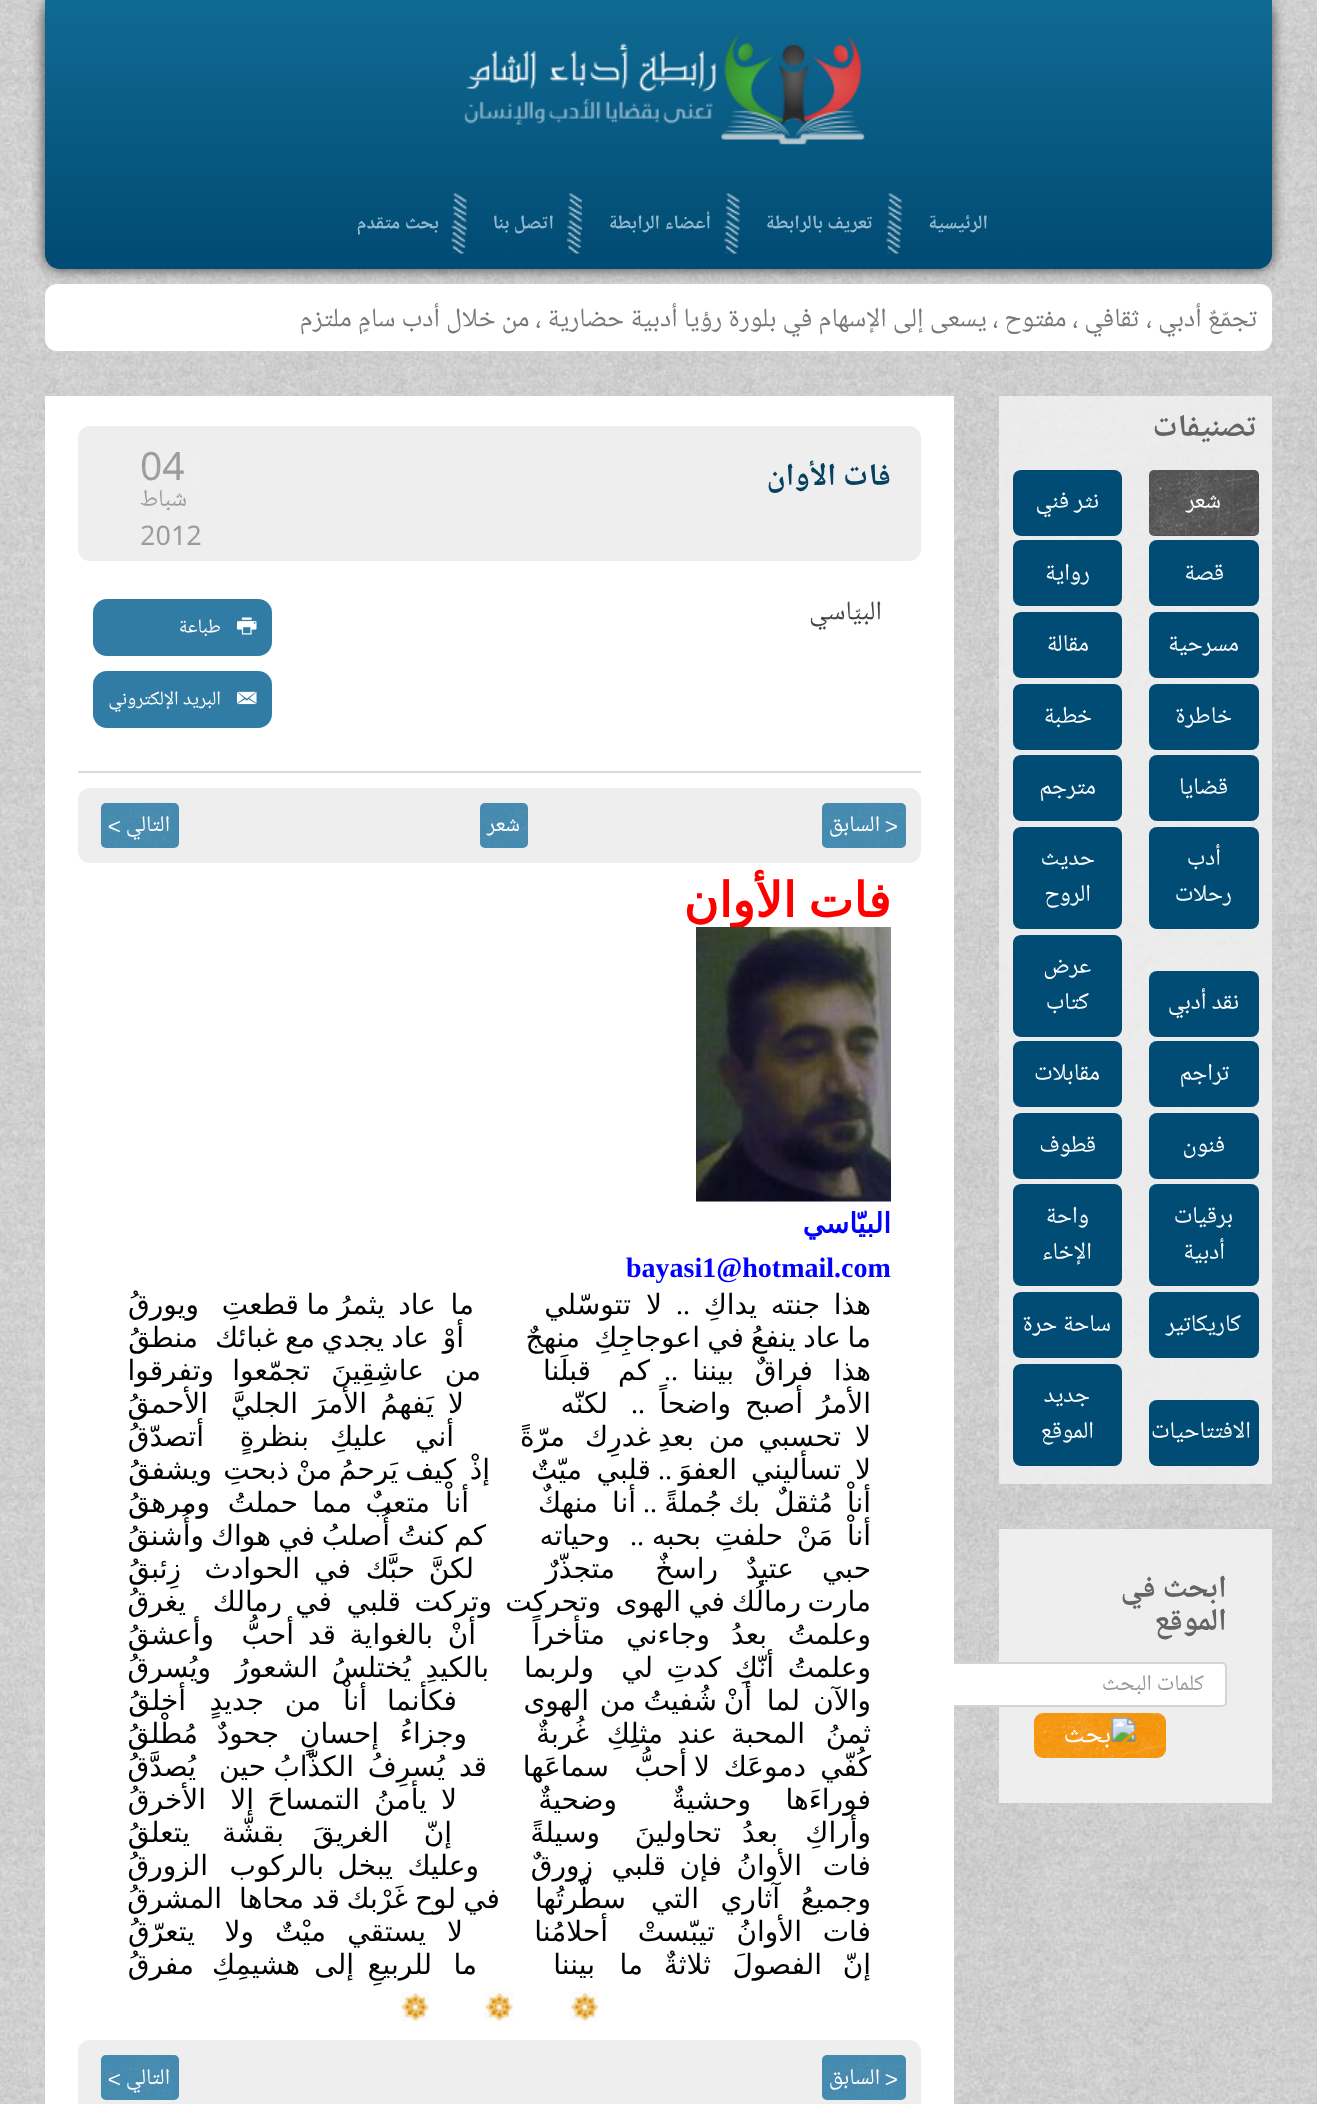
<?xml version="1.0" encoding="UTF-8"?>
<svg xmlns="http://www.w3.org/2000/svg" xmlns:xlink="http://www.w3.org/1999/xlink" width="1317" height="2104">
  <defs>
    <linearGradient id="g1" gradientUnits="userSpaceOnUse" x1="659" y1="0" x2="659" y2="269"><stop offset="0" stop-color="#106a93" /><stop offset="0.94" stop-color="#014c74" /></linearGradient>
  </defs>
  <rect width="100%" height="100%" fill="#ffffff" />
  <image x="0" y="0" width="1317" height="2104" xlink:href="image1.png" />
  <rect x="45" width="1227" height="269" rx="15" fill="#393939" filter="blur(7px)" />
  <path d="M 45 0 h 1227 v 254 c 0 8.5 -6.5 15 -15 15 h -1197 c -8.5 0 -15 -6.5 -15 -15 z" fill="url(#g1)" />
  <image x="464" y="34" width="401" height="111" xlink:href="image2.png" />
  <image x="886" y="193" width="16" height="61" xlink:href="image3.png" />
  <image x="724" y="193" width="16" height="61" xlink:href="image4.png" />
  <image x="567" y="193" width="15" height="61" xlink:href="image5.png" />
  <image x="451" y="193" width="16" height="61" xlink:href="image3.png" />
  <rect x="45" y="284" width="1227" height="67" rx="12" fill="#ffffff" />
  <rect x="999" y="396" width="273" height="1088" fill="#f2f2f2" fill-opacity="0.8" />
  <rect x="1149" y="470" width="110" height="66" rx="5" fill="#4a4a4a" />
  <image x="1149" y="470" width="110" height="66" xlink:href="image6.png" />
  <rect x="1013" y="470" width="109" height="66" rx="8" fill="#014c74" />
  <rect x="1149" y="540" width="110" height="66" rx="8" fill="#014c74" />
  <rect x="1013" y="540" width="109" height="66" rx="8" fill="#014c74" />
  <rect x="1149" y="612" width="110" height="66" rx="8" fill="#014c74" />
  <rect x="1013" y="612" width="109" height="66" rx="8" fill="#014c74" />
  <rect x="1149" y="684" width="110" height="66" rx="8" fill="#014c74" />
  <rect x="1013" y="684" width="109" height="66" rx="8" fill="#014c74" />
  <rect x="1149" y="755" width="110" height="66" rx="8" fill="#014c74" />
  <rect x="1013" y="755" width="109" height="66" rx="8" fill="#014c74" />
  <rect x="1149" y="827" width="110" height="102" rx="8" fill="#014c74" />
  <rect x="1013" y="827" width="109" height="102" rx="8" fill="#014c74" />
  <rect x="1149" y="971" width="110" height="66" rx="8" fill="#014c74" />
  <rect x="1013" y="935" width="109" height="102" rx="8" fill="#014c74" />
  <rect x="1149" y="1041" width="110" height="66" rx="8" fill="#014c74" />
  <rect x="1013" y="1041" width="109" height="66" rx="8" fill="#014c74" />
  <rect x="1149" y="1113" width="110" height="66" rx="8" fill="#014c74" />
  <rect x="1013" y="1113" width="109" height="66" rx="8" fill="#014c74" />
  <rect x="1149" y="1184" width="110" height="102" rx="8" fill="#014c74" />
  <rect x="1013" y="1184" width="109" height="102" rx="8" fill="#014c74" />
  <rect x="1149" y="1292" width="110" height="66" rx="8" fill="#014c74" />
  <rect x="1013" y="1292" width="109" height="66" rx="8" fill="#014c74" />
  <rect x="1149" y="1400" width="110" height="66" rx="8" fill="#014c74" />
  <rect x="1013" y="1364" width="109" height="102" rx="8" fill="#014c74" />
  <rect x="999" y="1529" width="273" height="274" fill="#eeeeee" />
  <rect x="805" y="1663" width="421" height="43" rx="4" fill="#ffffff" stroke="#d4d4d4" stroke-width="2" />
  <rect x="1034" y="1713" width="132" height="45" rx="9" fill="#f49000" />
  <image x="1034" y="1713" width="132" height="45" xlink:href="image7.png" />
  <image x="1065" y="1717" width="71" height="31" xlink:href="image8.png" />
  <rect x="45" y="396" width="909" height="1708" fill="#ffffff" />
  <rect x="78" y="426" width="843" height="135" rx="12" fill="#eeeeee" />
  <rect x="78" y="771" width="843" height="2" fill="#d9d9d9" />
  <rect x="93" y="599" width="179" height="57" rx="14" fill="#317ca4" />
  <image x="237" y="617" width="20" height="18" xlink:href="image10.png" />
  <rect x="93" y="671" width="179" height="57" rx="14" fill="#317ca4" />
  <image x="237" y="691" width="20" height="14" xlink:href="image11.png" />
  <rect x="78" y="788" width="843" height="75" rx="12" fill="#eeeeee" />
  <rect x="822" y="803" width="84" height="45" rx="5" fill="#3f8ab2" />
  <image x="822" y="802" width="84" height="46" xlink:href="image12.png" />
  <rect x="480" y="803" width="48" height="45" rx="5" fill="#3f8ab2" />
  <image x="480" y="802" width="48" height="46" xlink:href="image13.png" />
  <rect x="101" y="803" width="78" height="45" rx="5" fill="#3f8ab2" />
  <image x="100" y="802" width="79" height="46" xlink:href="image14.png" />
  <image x="570" y="1992" width="29" height="29" xlink:href="image16.png" />
  <image x="484" y="1992" width="29" height="29" xlink:href="image17.png" />
  <image x="400" y="1992" width="29" height="29" xlink:href="image18.png" />
  <rect x="78" y="2040" width="843" height="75" rx="12" fill="#eeeeee" />
  <rect x="822" y="2055" width="84" height="45" rx="5" fill="#3f8ab2" />
  <image x="822" y="2055" width="84" height="45" xlink:href="image19.png" />
  <rect x="101" y="2055" width="78" height="45" rx="5" fill="#3f8ab2" />
  <image x="100" y="2055" width="79" height="45" xlink:href="image20.png" />
  <text x="988" y="231" style="font-family: Noto Naskh Arabic UI; font-size: 19.5px; font-weight: bold; direction: rtl; fill: #91b8cd">الرئيسية</text>
  <text x="873" y="231" style="font-family: Noto Naskh Arabic UI; font-size: 19.5px; font-weight: bold; direction: rtl; fill: #91b8cd">تعريف بالرابطة</text>
  <text x="711" y="231" style="font-family: Noto Naskh Arabic UI; font-size: 19.5px; font-weight: bold; direction: rtl; fill: #91b8cd">أعضاء الرابطة</text>
  <text x="554" y="231" style="font-family: Noto Naskh Arabic UI; font-size: 19.5px; font-weight: bold; direction: rtl; fill: #91b8cd">اتصل بنا</text>
  <text x="439" y="231" style="font-family: Noto Naskh Arabic UI; font-size: 19.5px; font-weight: bold; direction: rtl; fill: #91b8cd">بحث متقدم</text>
  <text x="1257" y="330" style="font-family: Noto Naskh Arabic UI; font-size: 27px; direction: rtl; fill: #787878">تجمّعٌ أدبي ، ثقافي ، مفتوح ، يسعى إلى الإسهام في بلورة رؤيا أدبية حضارية ، من خلال أدب سامٍ ملتزم</text>
  <text x="1257" y="440" style="font-family: Noto Naskh Arabic UI; font-size: 31.5px; font-weight: bold; direction: rtl; fill: #646464">تصنيفات</text>
  <text x="1221" y="511" style="font-family: Noto Naskh Arabic UI; font-size: 24px; direction: rtl; fill: #ffffff">شعر</text>
  <text x="1099" y="511" style="font-family: Noto Naskh Arabic UI; font-size: 24px; direction: rtl; fill: #ffffff">نثر فني</text>
  <text x="1224" y="583" style="font-family: Noto Naskh Arabic UI; font-size: 24px; direction: rtl; fill: #ffffff">قصة</text>
  <text x="1090" y="583" style="font-family: Noto Naskh Arabic UI; font-size: 24px; direction: rtl; fill: #ffffff">رواية</text>
  <text x="1239" y="654" style="font-family: Noto Naskh Arabic UI; font-size: 24px; direction: rtl; fill: #ffffff">مسرحية</text>
  <text x="1089" y="654" style="font-family: Noto Naskh Arabic UI; font-size: 24px; direction: rtl; fill: #ffffff">مقالة</text>
  <text x="1232" y="726" style="font-family: Noto Naskh Arabic UI; font-size: 24px; direction: rtl; fill: #ffffff">خاطرة</text>
  <text x="1092" y="726" style="font-family: Noto Naskh Arabic UI; font-size: 24px; direction: rtl; fill: #ffffff">خطبة</text>
  <text x="1228" y="797" style="font-family: Noto Naskh Arabic UI; font-size: 24px; direction: rtl; fill: #ffffff">قضايا</text>
  <text x="1096" y="797" style="font-family: Noto Naskh Arabic UI; font-size: 24px; direction: rtl; fill: #ffffff">مترجم</text>
  <text x="1221" y="868" style="font-family: Noto Naskh Arabic UI; font-size: 24px; direction: rtl; fill: #ffffff">أدب</text>
  <text x="1232" y="904" style="font-family: Noto Naskh Arabic UI; font-size: 24px; direction: rtl; fill: #ffffff">رحلات</text>
  <text x="1095" y="868" style="font-family: Noto Naskh Arabic UI; font-size: 24px; direction: rtl; fill: #ffffff">حديث</text>
  <text x="1091" y="904" style="font-family: Noto Naskh Arabic UI; font-size: 24px; direction: rtl; fill: #ffffff">الروح</text>
  <text x="1239" y="1012" style="font-family: Noto Naskh Arabic UI; font-size: 24px; direction: rtl; fill: #ffffff">نقد أدبي</text>
  <text x="1091" y="976" style="font-family: Noto Naskh Arabic UI; font-size: 24px; direction: rtl; fill: #ffffff">عرض</text>
  <text x="1089" y="1012" style="font-family: Noto Naskh Arabic UI; font-size: 24px; direction: rtl; fill: #ffffff">كتاب</text>
  <text x="1229" y="1083" style="font-family: Noto Naskh Arabic UI; font-size: 24px; direction: rtl; fill: #ffffff">تراجم</text>
  <text x="1100" y="1083" style="font-family: Noto Naskh Arabic UI; font-size: 24px; direction: rtl; fill: #ffffff">مقابلات</text>
  <text x="1225" y="1155" style="font-family: Noto Naskh Arabic UI; font-size: 24px; direction: rtl; fill: #ffffff">فنون</text>
  <text x="1096" y="1155" style="font-family: Noto Naskh Arabic UI; font-size: 24px; direction: rtl; fill: #ffffff">قطوف</text>
  <text x="1233" y="1226" style="font-family: Noto Naskh Arabic UI; font-size: 24px; direction: rtl; fill: #ffffff">برقيات</text>
  <text x="1225" y="1262" style="font-family: Noto Naskh Arabic UI; font-size: 24px; direction: rtl; fill: #ffffff">أدبية</text>
  <text x="1089" y="1226" style="font-family: Noto Naskh Arabic UI; font-size: 24px; direction: rtl; fill: #ffffff">واحة</text>
  <text x="1092" y="1262" style="font-family: Noto Naskh Arabic UI; font-size: 24px; direction: rtl; fill: #ffffff">الإخاء</text>
  <text x="1241" y="1334" style="font-family: Noto Naskh Arabic UI; font-size: 24px; direction: rtl; fill: #ffffff">كاريكاتير</text>
  <text x="1111" y="1334" style="font-family: Noto Naskh Arabic UI; font-size: 24px; direction: rtl; fill: #ffffff">ساحة حرة</text>
  <text x="1251" y="1441" style="font-family: Noto Naskh Arabic UI; font-size: 24px; direction: rtl; fill: #ffffff">الافتتاحيات</text>
  <text x="1090" y="1405" style="font-family: Noto Naskh Arabic UI; font-size: 24px; direction: rtl; fill: #ffffff">جديد</text>
  <text x="1094" y="1441" style="font-family: Noto Naskh Arabic UI; font-size: 24px; direction: rtl; fill: #ffffff">الموقع</text>
  <text x="1227" y="1601" style="font-family: Noto Naskh Arabic UI; font-size: 31.5px; font-weight: bold; direction: rtl; fill: #646464">ابحث في</text>
  <text x="1227" y="1634" style="font-family: Noto Naskh Arabic UI; font-size: 31.5px; font-weight: bold; direction: rtl; fill: #646464">الموقع</text>
  <text x="1204" y="1693" style="font-family: Noto Naskh Arabic UI; font-size: 22.5px; direction: rtl; fill: #999999">كلمات البحث</text>
  <text x="891" y="489" style="font-family: Noto Naskh Arabic UI; font-size: 31.5px; font-weight: bold; direction: rtl; fill: #064160">فات الأوان</text>
  <text x="140" y="480" style="font-family: Noto Naskh Arabic UI; font-size: 39px; fill: #999999">04</text>
  <text x="187" y="509" style="font-family: Noto Naskh Arabic UI; font-size: 24px; direction: rtl; fill: #999999">شباط</text>
  <text x="140" y="545" style="font-family: Noto Naskh Arabic UI; font-size: 27px; fill: #999999">2012</text>
  <image x="141" y="452" width="57" height="93" xlink:href="image9.png" />
  <text x="882" y="623" style="font-family: Noto Naskh Arabic UI; font-size: 27px; direction: rtl; fill: #444444">البيّاسي</text>
  <text x="221" y="635" style="font-family: Noto Naskh Arabic UI; font-size: 19.5px; direction: rtl; fill: #ffffff">طباعة</text>
  <text x="221" y="707" style="font-family: Noto Naskh Arabic UI; font-size: 19.5px; direction: rtl; fill: #ffffff">البريد الإلكتروني</text>
  <text x="898" y="834" style="font-family: Liberation Sans; font-size: 22.5px; direction: rtl; fill: #ffffff">&lt;</text>
  <text x="880" y="834" style="font-family: Noto Naskh Arabic UI; font-size: 22.5px; direction: rtl; fill: #ffffff">السابق</text>
  <text x="520" y="834" style="font-family: Noto Naskh Arabic UI; font-size: 22.5px; direction: rtl; fill: #ffffff">شعر</text>
  <text x="170" y="834" style="font-family: Noto Naskh Arabic UI; font-size: 22.5px; direction: rtl; fill: #ffffff">التالي</text>
  <text x="121" y="834" style="font-family: Liberation Sans; font-size: 22.5px; direction: rtl; fill: #ffffff">&gt;</text>
  <text x="891" y="917" word-spacing="-3" style="font-family: DejaVu Sans; font-size: 48px; font-weight: bold; direction: rtl; fill: #ff0000">فات الأوان</text>
  <image x="696" y="927" width="195" height="275" xlink:href="image15.png" />
  <text x="891" y="1233" style="font-family: DejaVu Sans; font-size: 28px; font-weight: bold; direction: rtl; fill: #0000ff">البيّاسي</text>
  <text x="626" y="1277" style="font-family: Liberation Serif; font-size: 28px; font-weight: bold; fill: #0000ff">bayasi1@hotmail.com</text>
  <text x="871" y="1314" style="font-family: DejaVu Sans; font-size: 28px; direction: rtl; fill: #000000">هذا</text>
  <text x="820" y="1314" style="font-family: DejaVu Sans; font-size: 28px; direction: rtl; fill: #000000">جنته</text>
  <text x="757" y="1314" style="font-family: DejaVu Sans; font-size: 28px; direction: rtl; fill: #000000">يداكِ</text>
  <text x="690" y="1314" style="font-family: Liberation Serif; font-size: 28px; direction: rtl; fill: #000000">..</text>
  <text x="662" y="1314" style="font-family: DejaVu Sans; font-size: 28px; direction: rtl; fill: #000000">لا</text>
  <text x="631" y="1314" style="font-family: DejaVu Sans; font-size: 28px; direction: rtl; fill: #000000">تتوسّلي</text>
  <text x="871" y="1347" style="font-family: DejaVu Sans; font-size: 28px; direction: rtl; fill: #000000">ما</text>
  <text x="841" y="1347" style="font-family: DejaVu Sans; font-size: 28px; direction: rtl; fill: #000000">عاد</text>
  <text x="796" y="1347" style="font-family: DejaVu Sans; font-size: 28px; direction: rtl; fill: #000000">ينفعُ</text>
  <text x="744" y="1347" style="font-family: DejaVu Sans; font-size: 28px; direction: rtl; fill: #000000">في</text>
  <text x="700" y="1347" style="font-family: DejaVu Sans; font-size: 28px; direction: rtl; fill: #000000">اعوجاجِكِ</text>
  <text x="580" y="1347" style="font-family: DejaVu Sans; font-size: 28px; direction: rtl; fill: #000000">منهجٌ</text>
  <text x="871" y="1380" style="font-family: DejaVu Sans; font-size: 28px; direction: rtl; fill: #000000">هذا</text>
  <text x="813" y="1380" style="font-family: DejaVu Sans; font-size: 28px; direction: rtl; fill: #000000">فراقٌ</text>
  <text x="734" y="1380" style="font-family: DejaVu Sans; font-size: 28px; direction: rtl; fill: #000000">بيننا</text>
  <text x="678" y="1380" style="font-family: Liberation Serif; font-size: 28px; direction: rtl; fill: #000000">..</text>
  <text x="650" y="1380" style="font-family: DejaVu Sans; font-size: 28px; direction: rtl; fill: #000000">كم</text>
  <text x="591" y="1380" style="font-family: DejaVu Sans; font-size: 28px; direction: rtl; fill: #000000">قبلَنا</text>
  <text x="871" y="1413" style="font-family: DejaVu Sans; font-size: 28px; direction: rtl; fill: #000000">الأمرُ</text>
  <text x="803" y="1413" style="font-family: DejaVu Sans; font-size: 28px; direction: rtl; fill: #000000">أصبح</text>
  <text x="731" y="1413" style="font-family: DejaVu Sans; font-size: 28px; direction: rtl; fill: #000000">واضحاً</text>
  <text x="645" y="1413" style="font-family: Liberation Serif; font-size: 28px; direction: rtl; fill: #000000">..</text>
  <text x="608" y="1413" style="font-family: DejaVu Sans; font-size: 28px; direction: rtl; fill: #000000">لكنّه</text>
  <text x="871" y="1446" style="font-family: DejaVu Sans; font-size: 28px; direction: rtl; fill: #000000">لا</text>
  <text x="841" y="1446" style="font-family: DejaVu Sans; font-size: 28px; direction: rtl; fill: #000000">تحسبي</text>
  <text x="745" y="1446" style="font-family: DejaVu Sans; font-size: 28px; direction: rtl; fill: #000000">من</text>
  <text x="694" y="1446" style="font-family: DejaVu Sans; font-size: 28px; direction: rtl; fill: #000000">بعدِ</text>
  <text x="651" y="1446" style="font-family: DejaVu Sans; font-size: 28px; direction: rtl; fill: #000000">غدرِك</text>
  <text x="565" y="1446" style="font-family: DejaVu Sans; font-size: 28px; direction: rtl; fill: #000000">مرّةً</text>
  <text x="871" y="1479" style="font-family: DejaVu Sans; font-size: 28px; direction: rtl; fill: #000000">لا</text>
  <text x="841" y="1479" style="font-family: DejaVu Sans; font-size: 28px; direction: rtl; fill: #000000">تسأليني</text>
  <text x="737" y="1479" style="font-family: DejaVu Sans; font-size: 28px; direction: rtl; fill: #000000">العفوَ</text>
  <text x="672" y="1479" style="font-family: Liberation Serif; font-size: 28px; direction: rtl; fill: #000000">..</text>
  <text x="651" y="1479" style="font-family: DejaVu Sans; font-size: 28px; direction: rtl; fill: #000000">قلبي</text>
  <text x="582" y="1479" style="font-family: DejaVu Sans; font-size: 28px; direction: rtl; fill: #000000">ميّتٌ</text>
  <text x="871" y="1512" style="font-family: DejaVu Sans; font-size: 28px; direction: rtl; fill: #000000">أناْ</text>
  <text x="833" y="1512" style="font-family: DejaVu Sans; font-size: 28px; direction: rtl; fill: #000000">مُثقلٌ</text>
  <text x="760" y="1512" style="font-family: DejaVu Sans; font-size: 28px; direction: rtl; fill: #000000">بك</text>
  <text x="722" y="1512" style="font-family: DejaVu Sans; font-size: 28px; direction: rtl; fill: #000000">جُملةً</text>
  <text x="657" y="1512" style="font-family: Liberation Serif; font-size: 28px; direction: rtl; fill: #000000">..</text>
  <text x="636" y="1512" style="font-family: DejaVu Sans; font-size: 28px; direction: rtl; fill: #000000">أنا</text>
  <text x="598" y="1512" style="font-family: DejaVu Sans; font-size: 28px; direction: rtl; fill: #000000">منهكٌ</text>
  <text x="871" y="1545" style="font-family: DejaVu Sans; font-size: 28px; direction: rtl; fill: #000000">أناْ</text>
  <text x="833" y="1545" style="font-family: DejaVu Sans; font-size: 28px; direction: rtl; fill: #000000">مَنْ</text>
  <text x="783" y="1545" style="font-family: DejaVu Sans; font-size: 28px; direction: rtl; fill: #000000">حلفتِ</text>
  <text x="701" y="1545" style="font-family: DejaVu Sans; font-size: 28px; direction: rtl; fill: #000000">بحبه</text>
  <text x="644" y="1545" style="font-family: Liberation Serif; font-size: 28px; direction: rtl; fill: #000000">..</text>
  <text x="610" y="1545" style="font-family: DejaVu Sans; font-size: 28px; direction: rtl; fill: #000000">وحياته</text>
  <text x="871" y="1578" style="font-family: DejaVu Sans; font-size: 28px; direction: rtl; fill: #000000">حبي</text>
  <text x="794" y="1578" style="font-family: DejaVu Sans; font-size: 28px; direction: rtl; fill: #000000">عتيدٌ</text>
  <text x="718" y="1578" style="font-family: DejaVu Sans; font-size: 28px; direction: rtl; fill: #000000">راسخٌ</text>
  <text x="615" y="1578" style="font-family: DejaVu Sans; font-size: 28px; direction: rtl; fill: #000000">متجذّرٌ</text>
  <text x="871" y="1611" style="font-family: DejaVu Sans; font-size: 28px; direction: rtl; fill: #000000">مارت</text>
  <text x="801" y="1611" style="font-family: DejaVu Sans; font-size: 28px; direction: rtl; fill: #000000">رمالُك</text>
  <text x="725" y="1611" style="font-family: DejaVu Sans; font-size: 28px; direction: rtl; fill: #000000">في</text>
  <text x="681" y="1611" style="font-family: DejaVu Sans; font-size: 28px; direction: rtl; fill: #000000">الهوى</text>
  <text x="601" y="1611" style="font-family: DejaVu Sans; font-size: 28px; direction: rtl; fill: #000000">وتحركت</text>
  <text x="871" y="1644" style="font-family: DejaVu Sans; font-size: 28px; direction: rtl; fill: #000000">وعلمتُ</text>
  <text x="767" y="1644" style="font-family: DejaVu Sans; font-size: 28px; direction: rtl; fill: #000000">بعدُ</text>
  <text x="710" y="1644" style="font-family: DejaVu Sans; font-size: 28px; direction: rtl; fill: #000000">وجاءني</text>
  <text x="605" y="1644" style="font-family: DejaVu Sans; font-size: 28px; direction: rtl; fill: #000000">متأخراً</text>
  <text x="871" y="1677" style="font-family: DejaVu Sans; font-size: 28px; direction: rtl; fill: #000000">وعلمتُ</text>
  <text x="774" y="1677" style="font-family: DejaVu Sans; font-size: 28px; direction: rtl; fill: #000000">أنّكِ</text>
  <text x="721" y="1677" style="font-family: DejaVu Sans; font-size: 28px; direction: rtl; fill: #000000">كدتِ</text>
  <text x="653" y="1677" style="font-family: DejaVu Sans; font-size: 28px; direction: rtl; fill: #000000">لي</text>
  <text x="594" y="1677" style="font-family: DejaVu Sans; font-size: 28px; direction: rtl; fill: #000000">ولربما</text>
  <text x="871" y="1710" style="font-family: DejaVu Sans; font-size: 28px; direction: rtl; fill: #000000">والآن</text>
  <text x="800" y="1710" style="font-family: DejaVu Sans; font-size: 28px; direction: rtl; fill: #000000">لما</text>
  <text x="752" y="1710" style="font-family: DejaVu Sans; font-size: 28px; direction: rtl; fill: #000000">أنْ</text>
  <text x="717" y="1710" style="font-family: DejaVu Sans; font-size: 28px; direction: rtl; fill: #000000">شُفيتُ</text>
  <text x="636" y="1710" style="font-family: DejaVu Sans; font-size: 28px; direction: rtl; fill: #000000">من</text>
  <text x="589" y="1710" style="font-family: DejaVu Sans; font-size: 28px; direction: rtl; fill: #000000">الهوى</text>
  <text x="871" y="1743" style="font-family: DejaVu Sans; font-size: 28px; direction: rtl; fill: #000000">ثمنُ</text>
  <text x="805" y="1743" style="font-family: DejaVu Sans; font-size: 28px; direction: rtl; fill: #000000">المحبة</text>
  <text x="717" y="1743" style="font-family: DejaVu Sans; font-size: 28px; direction: rtl; fill: #000000">عند</text>
  <text x="663" y="1743" style="font-family: DejaVu Sans; font-size: 28px; direction: rtl; fill: #000000">مثلِكِ</text>
  <text x="589" y="1743" style="font-family: DejaVu Sans; font-size: 28px; direction: rtl; fill: #000000">غُربةٌ</text>
  <text x="871" y="1776" style="font-family: DejaVu Sans; font-size: 28px; direction: rtl; fill: #000000">كُفّي</text>
  <text x="806" y="1776" style="font-family: DejaVu Sans; font-size: 28px; direction: rtl; fill: #000000">دموعَك</text>
  <text x="710" y="1776" style="font-family: DejaVu Sans; font-size: 28px; direction: rtl; fill: #000000">لا</text>
  <text x="687" y="1776" style="font-family: DejaVu Sans; font-size: 28px; direction: rtl; fill: #000000">أحبُّ</text>
  <text x="609" y="1776" style="font-family: DejaVu Sans; font-size: 28px; direction: rtl; fill: #000000">سماعَها</text>
  <text x="871" y="1809" style="font-family: DejaVu Sans; font-size: 28px; direction: rtl; fill: #000000">فوراءَها</text>
  <text x="751" y="1809" style="font-family: DejaVu Sans; font-size: 28px; direction: rtl; fill: #000000">وحشيةٌ</text>
  <text x="617" y="1809" style="font-family: DejaVu Sans; font-size: 28px; direction: rtl; fill: #000000">وضحيةٌ</text>
  <text x="871" y="1842" style="font-family: DejaVu Sans; font-size: 28px; direction: rtl; fill: #000000">وأراكِ</text>
  <text x="778" y="1842" style="font-family: DejaVu Sans; font-size: 28px; direction: rtl; fill: #000000">بعدُ</text>
  <text x="721" y="1842" style="font-family: DejaVu Sans; font-size: 28px; direction: rtl; fill: #000000">تحاولينَ</text>
  <text x="600" y="1842" style="font-family: DejaVu Sans; font-size: 28px; direction: rtl; fill: #000000">وسيلةً</text>
  <text x="871" y="1875" style="font-family: DejaVu Sans; font-size: 28px; direction: rtl; fill: #000000">فات</text>
  <text x="802" y="1875" style="font-family: DejaVu Sans; font-size: 28px; direction: rtl; fill: #000000">الأوانُ</text>
  <text x="722" y="1875" style="font-family: DejaVu Sans; font-size: 28px; direction: rtl; fill: #000000">فإن</text>
  <text x="666" y="1875" style="font-family: DejaVu Sans; font-size: 28px; direction: rtl; fill: #000000">قلبي</text>
  <text x="593" y="1875" style="font-family: DejaVu Sans; font-size: 28px; direction: rtl; fill: #000000">زورقٌ</text>
  <text x="871" y="1908" style="font-family: DejaVu Sans; font-size: 28px; direction: rtl; fill: #000000">وجميعُ</text>
  <text x="780" y="1908" style="font-family: DejaVu Sans; font-size: 28px; direction: rtl; fill: #000000">آثاري</text>
  <text x="699" y="1908" style="font-family: DejaVu Sans; font-size: 28px; direction: rtl; fill: #000000">التي</text>
  <text x="626" y="1908" style="font-family: DejaVu Sans; font-size: 28px; direction: rtl; fill: #000000">سطّرتُها</text>
  <text x="871" y="1941" style="font-family: DejaVu Sans; font-size: 28px; direction: rtl; fill: #000000">فات</text>
  <text x="802" y="1941" style="font-family: DejaVu Sans; font-size: 28px; direction: rtl; fill: #000000">الأوانُ</text>
  <text x="715" y="1941" style="font-family: DejaVu Sans; font-size: 28px; direction: rtl; fill: #000000">تيبّستْ</text>
  <text x="608" y="1941" style="font-family: DejaVu Sans; font-size: 28px; direction: rtl; fill: #000000">أحلامُنا</text>
  <text x="871" y="1974" style="font-family: DejaVu Sans; font-size: 28px; direction: rtl; fill: #000000">إنّ</text>
  <text x="822" y="1974" style="font-family: DejaVu Sans; font-size: 28px; direction: rtl; fill: #000000">الفصولَ</text>
  <text x="711" y="1974" style="font-family: DejaVu Sans; font-size: 28px; direction: rtl; fill: #000000">ثلاثةٌ</text>
  <text x="643" y="1974" style="font-family: DejaVu Sans; font-size: 28px; direction: rtl; fill: #000000">ما</text>
  <text x="595" y="1974" style="font-family: DejaVu Sans; font-size: 28px; direction: rtl; fill: #000000">بيننا</text>
  <text x="474" y="1314" style="font-family: DejaVu Sans; font-size: 28px; direction: rtl; fill: #000000">ما</text>
  <text x="436" y="1314" style="font-family: DejaVu Sans; font-size: 28px; direction: rtl; fill: #000000">عاد</text>
  <text x="385" y="1314" style="font-family: DejaVu Sans; font-size: 28px; direction: rtl; fill: #000000">يثمرُ</text>
  <text x="330" y="1314" style="font-family: DejaVu Sans; font-size: 28px; direction: rtl; fill: #000000">ما</text>
  <text x="299" y="1314" style="font-family: DejaVu Sans; font-size: 28px; direction: rtl; fill: #000000">قطعتِ</text>
  <text x="199" y="1314" style="font-family: DejaVu Sans; font-size: 28px; direction: rtl; fill: #000000">ويورقُ</text>
  <text x="464" y="1347" style="font-family: DejaVu Sans; font-size: 28px; direction: rtl; fill: #000000">أوْ</text>
  <text x="429" y="1347" style="font-family: DejaVu Sans; font-size: 28px; direction: rtl; fill: #000000">عاد</text>
  <text x="384" y="1347" style="font-family: DejaVu Sans; font-size: 28px; direction: rtl; fill: #000000">يجدي</text>
  <text x="315" y="1347" style="font-family: DejaVu Sans; font-size: 28px; direction: rtl; fill: #000000">مع</text>
  <text x="278" y="1347" style="font-family: DejaVu Sans; font-size: 28px; direction: rtl; fill: #000000">غبائك</text>
  <text x="198" y="1347" style="font-family: DejaVu Sans; font-size: 28px; direction: rtl; fill: #000000">منطقُ</text>
  <text x="481" y="1380" style="font-family: DejaVu Sans; font-size: 28px; direction: rtl; fill: #000000">من</text>
  <text x="424" y="1380" style="font-family: DejaVu Sans; font-size: 28px; direction: rtl; fill: #000000">عاشِقِينَ</text>
  <text x="310" y="1380" style="font-family: DejaVu Sans; font-size: 28px; direction: rtl; fill: #000000">تجمّعوا</text>
  <text x="214" y="1380" style="font-family: DejaVu Sans; font-size: 28px; direction: rtl; fill: #000000">وتفرقوا</text>
  <text x="464" y="1413" style="font-family: DejaVu Sans; font-size: 28px; direction: rtl; fill: #000000">لا</text>
  <text x="434" y="1413" style="font-family: DejaVu Sans; font-size: 28px; direction: rtl; fill: #000000">يَفهمُ</text>
  <text x="367" y="1413" style="font-family: DejaVu Sans; font-size: 28px; direction: rtl; fill: #000000">الأمرَ</text>
  <text x="298" y="1413" style="font-family: DejaVu Sans; font-size: 28px; direction: rtl; fill: #000000">الجليَّ</text>
  <text x="208" y="1413" style="font-family: DejaVu Sans; font-size: 28px; direction: rtl; fill: #000000">الأحمقُ</text>
  <text x="454" y="1446" style="font-family: DejaVu Sans; font-size: 28px; direction: rtl; fill: #000000">أني</text>
  <text x="388" y="1446" style="font-family: DejaVu Sans; font-size: 28px; direction: rtl; fill: #000000">عليكِ</text>
  <text x="309" y="1446" style="font-family: DejaVu Sans; font-size: 28px; direction: rtl; fill: #000000">بنظرةٍ</text>
  <text x="204" y="1446" style="font-family: DejaVu Sans; font-size: 28px; direction: rtl; fill: #000000">أتصدّقُ</text>
  <text x="490" y="1479" style="font-family: DejaVu Sans; font-size: 28px; direction: rtl; fill: #000000">إذْ</text>
  <text x="456" y="1479" style="font-family: DejaVu Sans; font-size: 28px; direction: rtl; fill: #000000">كيف</text>
  <text x="398" y="1479" style="font-family: DejaVu Sans; font-size: 28px; direction: rtl; fill: #000000">يَرحمُ</text>
  <text x="332" y="1479" style="font-family: DejaVu Sans; font-size: 28px; direction: rtl; fill: #000000">منْ</text>
  <text x="289" y="1479" style="font-family: DejaVu Sans; font-size: 28px; direction: rtl; fill: #000000">ذبحتِ</text>
  <text x="212" y="1479" style="font-family: DejaVu Sans; font-size: 28px; direction: rtl; fill: #000000">ويشفقُ</text>
  <text x="469" y="1512" style="font-family: DejaVu Sans; font-size: 28px; direction: rtl; fill: #000000">أناْ</text>
  <text x="430" y="1512" style="font-family: DejaVu Sans; font-size: 28px; direction: rtl; fill: #000000">متعبٌ</text>
  <text x="352" y="1512" style="font-family: DejaVu Sans; font-size: 28px; direction: rtl; fill: #000000">مما</text>
  <text x="298" y="1512" style="font-family: DejaVu Sans; font-size: 28px; direction: rtl; fill: #000000">حملتُ</text>
  <text x="210" y="1512" style="font-family: DejaVu Sans; font-size: 28px; direction: rtl; fill: #000000">ومرهقُ</text>
  <text x="486" y="1545" style="font-family: DejaVu Sans; font-size: 28px; direction: rtl; fill: #000000">كم</text>
  <text x="447" y="1545" style="font-family: DejaVu Sans; font-size: 28px; direction: rtl; fill: #000000">كنتُ</text>
  <text x="390" y="1545" style="font-family: DejaVu Sans; font-size: 28px; direction: rtl; fill: #000000">أُصلبُ</text>
  <text x="315" y="1545" style="font-family: DejaVu Sans; font-size: 28px; direction: rtl; fill: #000000">في</text>
  <text x="271" y="1545" style="font-family: DejaVu Sans; font-size: 28px; direction: rtl; fill: #000000">هواك</text>
  <text x="204" y="1545" style="font-family: DejaVu Sans; font-size: 28px; direction: rtl; fill: #000000">وأُشنقُ</text>
  <text x="474" y="1578" style="font-family: DejaVu Sans; font-size: 28px; direction: rtl; fill: #000000">لكنَّ</text>
  <text x="415" y="1578" style="font-family: DejaVu Sans; font-size: 28px; direction: rtl; fill: #000000">حبَّك</text>
  <text x="351" y="1578" style="font-family: DejaVu Sans; font-size: 28px; direction: rtl; fill: #000000">في</text>
  <text x="300" y="1578" style="font-family: DejaVu Sans; font-size: 28px; direction: rtl; fill: #000000">الحوادث</text>
  <text x="181" y="1578" style="font-family: DejaVu Sans; font-size: 28px; direction: rtl; fill: #000000">زِئبقُ</text>
  <text x="492" y="1611" style="font-family: DejaVu Sans; font-size: 28px; direction: rtl; fill: #000000">وتركت</text>
  <text x="401" y="1611" style="font-family: DejaVu Sans; font-size: 28px; direction: rtl; fill: #000000">قلبي</text>
  <text x="332" y="1611" style="font-family: DejaVu Sans; font-size: 28px; direction: rtl; fill: #000000">في</text>
  <text x="282" y="1611" style="font-family: DejaVu Sans; font-size: 28px; direction: rtl; fill: #000000">رمالك</text>
  <text x="186" y="1611" style="font-family: DejaVu Sans; font-size: 28px; direction: rtl; fill: #000000">يغرقُ</text>
  <text x="476" y="1644" style="font-family: DejaVu Sans; font-size: 28px; direction: rtl; fill: #000000">أنْ</text>
  <text x="433" y="1644" style="font-family: DejaVu Sans; font-size: 28px; direction: rtl; fill: #000000">بالغواية</text>
  <text x="336" y="1644" style="font-family: DejaVu Sans; font-size: 28px; direction: rtl; fill: #000000">قد</text>
  <text x="294" y="1644" style="font-family: DejaVu Sans; font-size: 28px; direction: rtl; fill: #000000">أحبُّ</text>
  <text x="214" y="1644" style="font-family: DejaVu Sans; font-size: 28px; direction: rtl; fill: #000000">وأعشقُ</text>
  <text x="489" y="1677" style="font-family: DejaVu Sans; font-size: 28px; direction: rtl; fill: #000000">بالكيدِ</text>
  <text x="411" y="1677" style="font-family: DejaVu Sans; font-size: 28px; direction: rtl; fill: #000000">يُختلسُ</text>
  <text x="318" y="1677" style="font-family: DejaVu Sans; font-size: 28px; direction: rtl; fill: #000000">الشعورُ</text>
  <text x="211" y="1677" style="font-family: DejaVu Sans; font-size: 28px; direction: rtl; fill: #000000">ويُسرقُ</text>
  <text x="457" y="1710" style="font-family: DejaVu Sans; font-size: 28px; direction: rtl; fill: #000000">فكأنما</text>
  <text x="367" y="1710" style="font-family: DejaVu Sans; font-size: 28px; direction: rtl; fill: #000000">أناْ</text>
  <text x="321" y="1710" style="font-family: DejaVu Sans; font-size: 28px; direction: rtl; fill: #000000">من</text>
  <text x="264" y="1710" style="font-family: DejaVu Sans; font-size: 28px; direction: rtl; fill: #000000">جديدٍ</text>
  <text x="186" y="1710" style="font-family: DejaVu Sans; font-size: 28px; direction: rtl; fill: #000000">أخلقُ</text>
  <text x="467" y="1743" style="font-family: DejaVu Sans; font-size: 28px; direction: rtl; fill: #000000">وجزاءُ</text>
  <text x="379" y="1743" style="font-family: DejaVu Sans; font-size: 28px; direction: rtl; fill: #000000">إحسانٍ</text>
  <text x="279" y="1743" style="font-family: DejaVu Sans; font-size: 28px; direction: rtl; fill: #000000">جحودٌ</text>
  <text x="198" y="1743" style="font-family: DejaVu Sans; font-size: 28px; direction: rtl; fill: #000000">مُطْلقُ</text>
  <text x="487" y="1776" style="font-family: DejaVu Sans; font-size: 28px; direction: rtl; fill: #000000">قد</text>
  <text x="445" y="1776" style="font-family: DejaVu Sans; font-size: 28px; direction: rtl; fill: #000000">يُسرِفُ</text>
  <text x="354" y="1776" style="font-family: DejaVu Sans; font-size: 28px; direction: rtl; fill: #000000">الكذّابُ</text>
  <text x="266" y="1776" style="font-family: DejaVu Sans; font-size: 28px; direction: rtl; fill: #000000">حين</text>
  <text x="196" y="1776" style="font-family: DejaVu Sans; font-size: 28px; direction: rtl; fill: #000000">يُصدَّقُ</text>
  <text x="457" y="1809" style="font-family: DejaVu Sans; font-size: 28px; direction: rtl; fill: #000000">لا</text>
  <text x="427" y="1809" style="font-family: DejaVu Sans; font-size: 28px; direction: rtl; fill: #000000">يأمنُ</text>
  <text x="360" y="1809" style="font-family: DejaVu Sans; font-size: 28px; direction: rtl; fill: #000000">التمساحَ</text>
  <text x="254" y="1809" style="font-family: DejaVu Sans; font-size: 28px; direction: rtl; fill: #000000">إلا</text>
  <text x="206" y="1809" style="font-family: DejaVu Sans; font-size: 28px; direction: rtl; fill: #000000">الأخرقُ</text>
  <text x="452" y="1842" style="font-family: DejaVu Sans; font-size: 28px; direction: rtl; fill: #000000">إنّ</text>
  <text x="389" y="1842" style="font-family: DejaVu Sans; font-size: 28px; direction: rtl; fill: #000000">الغريقَ</text>
  <text x="284" y="1842" style="font-family: DejaVu Sans; font-size: 28px; direction: rtl; fill: #000000">بقشّة</text>
  <text x="190" y="1842" style="font-family: DejaVu Sans; font-size: 28px; direction: rtl; fill: #000000">يتعلقُ</text>
  <text x="479" y="1875" style="font-family: DejaVu Sans; font-size: 28px; direction: rtl; fill: #000000">وعليك</text>
  <text x="393" y="1875" style="font-family: DejaVu Sans; font-size: 28px; direction: rtl; fill: #000000">يبخل</text>
  <text x="324" y="1875" style="font-family: DejaVu Sans; font-size: 28px; direction: rtl; fill: #000000">بالركوب</text>
  <text x="208" y="1875" style="font-family: DejaVu Sans; font-size: 28px; direction: rtl; fill: #000000">الزورقُ</text>
  <text x="500" y="1908" style="font-family: DejaVu Sans; font-size: 28px; direction: rtl; fill: #000000">في</text>
  <text x="456" y="1908" style="font-family: DejaVu Sans; font-size: 28px; direction: rtl; fill: #000000">لوح</text>
  <text x="408" y="1908" style="font-family: DejaVu Sans; font-size: 28px; direction: rtl; fill: #000000">غَرْبك</text>
  <text x="340" y="1908" style="font-family: DejaVu Sans; font-size: 28px; direction: rtl; fill: #000000">قد</text>
  <text x="304" y="1908" style="font-family: DejaVu Sans; font-size: 28px; direction: rtl; fill: #000000">محاها</text>
  <text x="222" y="1908" style="font-family: DejaVu Sans; font-size: 28px; direction: rtl; fill: #000000">المشرقُ</text>
  <text x="463" y="1941" style="font-family: DejaVu Sans; font-size: 28px; direction: rtl; fill: #000000">لا</text>
  <text x="426" y="1941" style="font-family: DejaVu Sans; font-size: 28px; direction: rtl; fill: #000000">يستقي</text>
  <text x="326" y="1941" style="font-family: DejaVu Sans; font-size: 28px; direction: rtl; fill: #000000">ميْتٌ</text>
  <text x="254" y="1941" style="font-family: DejaVu Sans; font-size: 28px; direction: rtl; fill: #000000">ولا</text>
  <text x="195" y="1941" style="font-family: DejaVu Sans; font-size: 28px; direction: rtl; fill: #000000">يتعرّقُ</text>
  <text x="477" y="1974" style="font-family: DejaVu Sans; font-size: 28px; direction: rtl; fill: #000000">ما</text>
  <text x="432" y="1974" style="font-family: DejaVu Sans; font-size: 28px; direction: rtl; fill: #000000">للربيعِ</text>
  <text x="354" y="1974" style="font-family: DejaVu Sans; font-size: 28px; direction: rtl; fill: #000000">إلى</text>
  <text x="300" y="1974" style="font-family: DejaVu Sans; font-size: 28px; direction: rtl; fill: #000000">هشيمِكِ</text>
  <text x="194" y="1974" style="font-family: DejaVu Sans; font-size: 28px; direction: rtl; fill: #000000">مفرقُ</text>
  <text x="898" y="2087" style="font-family: Liberation Sans; font-size: 22.5px; direction: rtl; fill: #ffffff">&lt;</text>
  <text x="880" y="2087" style="font-family: Noto Naskh Arabic UI; font-size: 22.5px; direction: rtl; fill: #ffffff">السابق</text>
  <text x="170" y="2087" style="font-family: Noto Naskh Arabic UI; font-size: 22.5px; direction: rtl; fill: #ffffff">التالي</text>
  <text x="121" y="2087" style="font-family: Liberation Sans; font-size: 22.5px; direction: rtl; fill: #ffffff">&gt;</text>
</svg>
